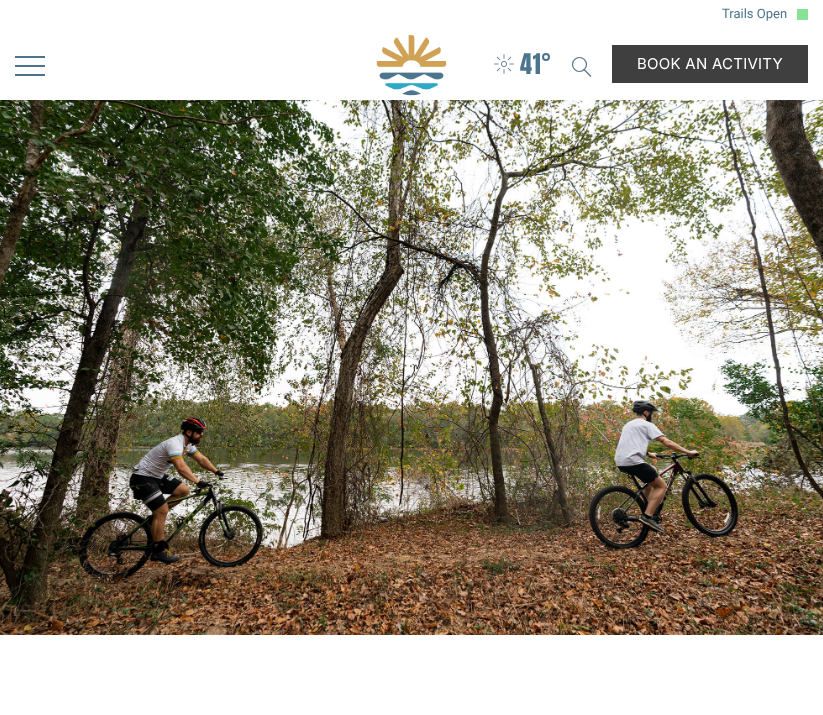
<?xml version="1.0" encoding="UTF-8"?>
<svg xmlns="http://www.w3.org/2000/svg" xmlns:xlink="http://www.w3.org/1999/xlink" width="823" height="715">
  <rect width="100%" height="100%" fill="#ffffff" />
  <rect x="797" y="9" width="11" height="11" fill="#89e195" />
  <rect x="15" y="65" width="30" height="2" fill="#4c748c" />
  <rect x="15" y="56" width="30" height="2" fill="#4c748c" />
  <rect x="15" y="74" width="30" height="2" fill="#4c748c" />
  <image x="376" y="34" width="71" height="62" xlink:href="image1.png" />
  <image x="494" y="54" width="20" height="20" xlink:href="image2.png" />
  <circle cx="546" cy="57" r="3" fill="none" stroke="#4c748c" stroke-width="2" />
  <circle cx="579.5" cy="64.5" r="7" fill="none" stroke="#55738a" stroke-width="1.2" />
  <path d="M 583.5 69 l 7.5 7.5" fill="none" stroke="#55738a" stroke-width="1.2" />
  <rect x="612" y="45" width="196" height="38" fill="#403f3f" />
  <image x="0" y="100" width="823" height="535" xlink:href="image3.png" />
  <text x="722" y="18" style="font-family: Roboto; font-size: 13px; fill: #4c748c">Trails Open</text>
  <text x="520" y="74" style="font-family: Anton; font-size: 24px; letter-spacing: 1px; fill: #4c748c">41</text>
  <text x="637" y="69" style="font-family: Inter; font-size: 15px; letter-spacing: 0.25px; fill: #ffffff">BOOK AN ACTIVITY</text>
</svg>
